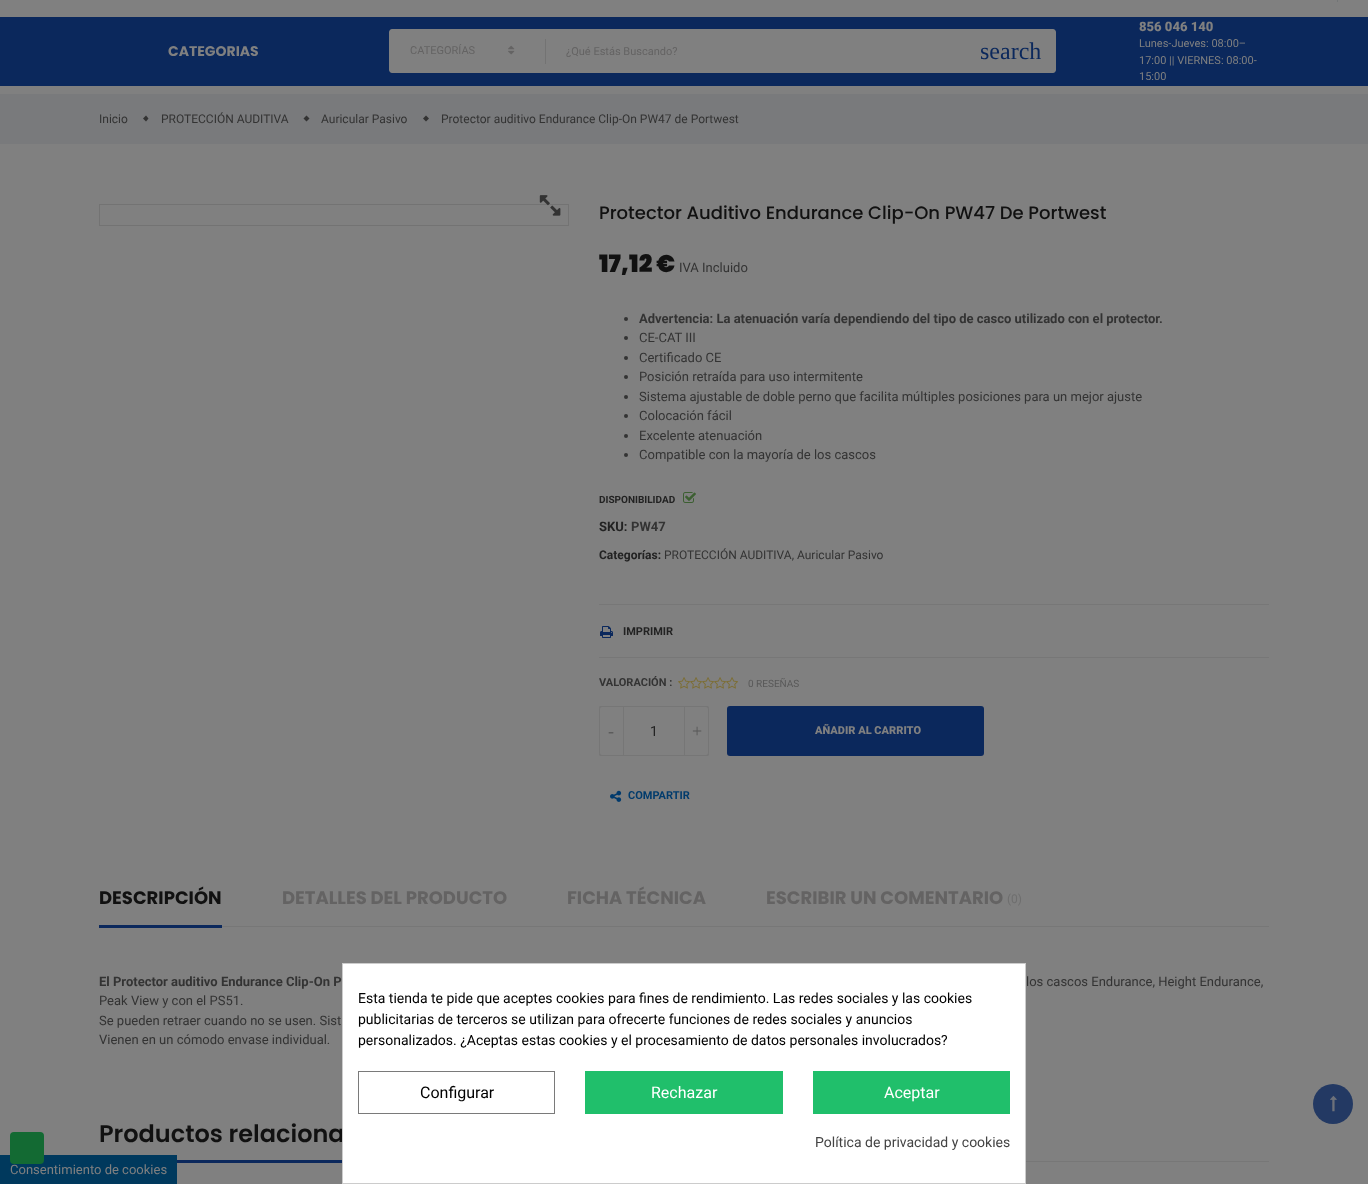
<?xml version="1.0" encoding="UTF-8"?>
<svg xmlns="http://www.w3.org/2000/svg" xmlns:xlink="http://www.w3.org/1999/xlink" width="1368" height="1184">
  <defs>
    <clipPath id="clip1"><rect x="599" y="706" width="110" height="50" /></clipPath>
  </defs>
  <rect width="100%" height="100%" fill="#808080" />
  <rect x="1337" width="1" height="2" fill="#727576" />
  <rect y="17" width="1368" height="69" fill="#0b285c" />
  <path d="M 392 29 h 155 v 44 h -155 c -1.5 0 -3 -1.5 -3 -3 v -38 c 0 -1.5 1.5 -3 3 -3 z" fill="#808080" />
  <image x="508" y="45" width="7" height="10" xlink:href="image1.png" />
  <rect x="545" y="39" width="1" height="25" fill="#737373" />
  <path d="M 546 29 h 507 c 1.5 0 3 1.5 3 3 v 38 c 0 1.5 -1.5 3 -3 3 h -507 z" fill="#808080" />
  <rect y="94" width="1368" height="50" fill="#797a7c" />
  <path d="M 146 115.5 l 2.5 3 l -2.5 3 l -3 -3 z" fill="#333333" />
  <path d="M 306.5 115.5 l 3 3 l -3 3 l -3 -3 z" fill="#333333" />
  <path d="M 426 115.5 l 3 3 l -3 3 l -3 -3 z" fill="#333333" />
  <rect x="99.5" y="204.5" width="469" height="21" fill="none" stroke="#737373" />
  <image x="539" y="195" width="22" height="21" xlink:href="image2.png" />
  <circle cx="626" cy="319" r="2" fill="#333333" />
  <circle cx="626" cy="338" r="2" fill="#333333" />
  <circle cx="626" cy="358" r="2" fill="#333333" />
  <circle cx="626" cy="377" r="2" fill="#333333" />
  <circle cx="626" cy="397" r="2" fill="#333333" />
  <circle cx="626" cy="416" r="2" fill="#333333" />
  <circle cx="626" cy="436" r="2" fill="#333333" />
  <circle cx="626" cy="455" r="2" fill="#333333" />
  <image x="683" y="492" width="13" height="11" xlink:href="image3.png" />
  <rect x="599" y="604" width="670" height="1" fill="#777777" />
  <rect x="599" y="657" width="670" height="1" fill="#777777" />
  <image x="600" y="626" width="13" height="12" xlink:href="image4.png" />
  <image x="678" y="677" width="12" height="12" xlink:href="image5.png" />
  <image x="690" y="677" width="12" height="12" xlink:href="image5.png" />
  <image x="702" y="677" width="12" height="12" xlink:href="image5.png" />
  <image x="714" y="677" width="12" height="12" xlink:href="image5.png" />
  <image x="726" y="677" width="12" height="12" xlink:href="image5.png" />
  <rect x="599.5" y="706.5" width="109" height="49" rx="2.5" fill="none" stroke="#767676" />
  <g clip-path="url(#clip1)">
    <path d="M 601 706.5 h 22.5 v 49 h -22.5 c -1.5 0 -2.5 -1 -2.5 -2.5 v -44 c 0 -1.5 1 -2.5 2.5 -2.5 z" fill="none" stroke="#767676" />
    <path d="M 684.5 706.5 h 22.5 c 1.5 0 2.5 1 2.5 2.5 v 44 c 0 1.5 -1 2.5 -2.5 2.5 h -22.5 z" fill="none" stroke="#767676" />
  </g>
  <rect x="727" y="706" width="257" height="50" rx="3" fill="#0b285c" />
  <image x="610" y="790" width="12" height="12" xlink:href="image6.png" />
  <rect x="222" y="926" width="1047" height="1" fill="#777777" />
  <rect x="99" y="925" width="123" height="3" fill="#0b285c" />
  <rect x="1026" y="1161" width="243" height="1" fill="#777777" />
  <rect x="177" y="1160" width="165" height="3" fill="#0b285c" />
  <circle cx="1333" cy="1104" r="20" fill="#233963" />
  <image x="1330" y="1095" width="7" height="17" xlink:href="image7.png" />
  <rect y="1155" width="177" height="29" fill="#00395d" />
  <rect x="10" y="1132" width="34" height="32" rx="4" fill="#136a33" />
  <text x="168" y="56" style="font-family: Poppins; font-size: 14px; font-weight: bold; fill: #808080">CATEGORIAS</text>
  <text x="410" y="54" style="font-family: Roboto; font-size: 11px; fill: #646363">CATEGORÍAS</text>
  <text x="566" y="55" style="font-family: Roboto; font-size: 11px; fill: #646363">¿Qué Estás Buscando?</text>
  <text x="980" y="59" style="font-family: Liberation Serif; font-size: 24px; fill: #0b285c">search</text>
  <text x="1139" y="31" style="font-family: Roboto; font-size: 13px; font-weight: 900; fill: #808080">856 046 140</text>
  <text x="1139" y="47" style="font-family: Roboto; font-size: 11px; fill: #808080">Lunes-Jueves: 08:00–</text>
  <text x="1139" y="64" style="font-family: Roboto; font-size: 11px; fill: #808080">17:00 || VIERNES: 08:00-</text>
  <text x="1139" y="80" style="font-family: Roboto; font-size: 11px; fill: #808080">15:00</text>
  <text x="99" y="123" style="font-family: Roboto; font-size: 12px; fill: #333333">Inicio</text>
  <text x="161" y="123" style="font-family: Roboto; font-size: 12px; fill: #333333">PROTECCIÓN AUDITIVA</text>
  <text x="321" y="123" style="font-family: Roboto; font-size: 12px; fill: #333333">Auricular Pasivo</text>
  <text x="441" y="123" style="font-family: Roboto; font-size: 12px; fill: #333333">Protector auditivo Endurance Clip-On PW47 de Portwest</text>
  <text x="599" y="219" style="font-family: Poppins; font-size: 18px; font-weight: 500; fill: #111111">Protector Auditivo Endurance Clip-On PW47 De Portwest</text>
  <text x="599" y="272" style="font-family: Poppins; font-size: 24px; font-weight: 900; fill: #111111">17,12 €</text>
  <text x="679" y="272" style="font-family: Roboto; font-size: 13px; fill: #333333">IVA Incluido</text>
  <text x="639" y="323" style="font-family: Roboto; font-size: 13px; font-weight: bold; fill: #333333">Advertencia: La atenuación varía dependiendo del tipo de casco utilizado con el protector.</text>
  <text x="639" y="342" style="font-family: Roboto; font-size: 13px; fill: #333333">CE-CAT III</text>
  <text x="639" y="362" style="font-family: Roboto; font-size: 13px; fill: #333333">Certificado CE</text>
  <text x="639" y="381" style="font-family: Roboto; font-size: 13px; fill: #333333">Posición retraída para uso intermitente</text>
  <text x="639" y="401" style="font-family: Roboto; font-size: 13px; fill: #333333">Sistema ajustable de doble perno que facilita múltiples posiciones para un mejor ajuste</text>
  <text x="639" y="420" style="font-family: Roboto; font-size: 13px; fill: #333333">Colocación fácil</text>
  <text x="639" y="440" style="font-family: Roboto; font-size: 13px; fill: #333333">Excelente atenuación</text>
  <text x="639" y="459" style="font-family: Roboto; font-size: 13px; fill: #333333">Compatible con la mayoría de los cascos</text>
  <text x="599" y="503" style="font-family: Roboto; font-size: 10px; font-weight: bold; fill: #222222">DISPONIBILIDAD</text>
  <text x="599" y="531" style="font-family: Roboto; font-size: 13px; font-weight: bold; fill: #222222">SKU:</text>
  <text x="631" y="531" style="font-family: Roboto; font-size: 13px; font-weight: bold; fill: #333333">PW47</text>
  <text x="599" y="559" style="font-family: Roboto; font-size: 12px; font-weight: bold; fill: #222222">Categorías:</text>
  <text x="664" y="559" style="font-family: Roboto; font-size: 12px; fill: #333333">PROTECCIÓN AUDITIVA, Auricular Pasivo</text>
  <text x="623" y="635" style="font-family: Roboto; font-size: 11px; font-weight: bold; fill: #222222">IMPRIMIR</text>
  <text x="599" y="686" style="font-family: Roboto; font-size: 11px; font-weight: bold; fill: #333333">VALORACIÓN :</text>
  <text x="748" y="687" style="font-family: Roboto; font-size: 10px; fill: #585858">0 RESEÑAS</text>
  <text x="608" y="737" style="font-family: Liberation Serif; font-size: 18px; fill: #585858">-</text>
  <text x="692" y="737" style="font-family: Liberation Serif; font-size: 18px; fill: #585858">+</text>
  <text x="650" y="736" style="font-family: Roboto; font-size: 14px; fill: #222222">1</text>
  <text x="815" y="734" style="font-family: Roboto; font-size: 11px; font-weight: 900; fill: #808080">AÑADIR AL CARRITO</text>
  <text x="628" y="799" style="font-family: Roboto; font-size: 11px; font-weight: bold; fill: #013b6c">COMPARTIR</text>
  <text x="99" y="904" style="font-family: Poppins; font-size: 18px; font-weight: bold; fill: #111111">DESCRIPCIÓN</text>
  <text x="282" y="904" style="font-family: Poppins; font-size: 18px; font-weight: bold; fill: #646363">DETALLES DEL PRODUCTO</text>
  <text x="567" y="904" style="font-family: Poppins; font-size: 18px; font-weight: bold; fill: #646363">FICHA TÉCNICA</text>
  <text x="766" y="904" style="font-family: Poppins; font-size: 18px; font-weight: bold; fill: #646363">ESCRIBIR UN COMENTARIO</text>
  <text x="1007" y="903" style="font-family: Roboto; font-size: 12px; fill: #6e6e6e">(0)</text>
  <text x="99" y="986" style="font-family: Roboto; font-size: 13px; font-weight: bold; fill: #333333">El Protector auditivo Endurance Clip-On P</text>
  <text x="1026" y="986" style="font-family: Roboto; font-size: 13px; fill: #333333">los cascos Endurance, Height Endurance,</text>
  <text x="99" y="1005" style="font-family: Roboto; font-size: 13px; fill: #333333">Peak View y con el PS51.</text>
  <text x="99" y="1025" style="font-family: Roboto; font-size: 13px; fill: #333333">Se pueden retraer cuando no se usen. Sist</text>
  <text x="99" y="1044" style="font-family: Roboto; font-size: 13px; fill: #333333">Vienen en un cómodo envase individual.</text>
  <text x="99" y="1142" style="font-family: Poppins; font-size: 24px; font-weight: 600; fill: #111111">Productos relaciona</text>
  <rect x="342.5" y="963.5" width="683" height="220" fill="#ffffff" stroke="#cccccc" />
  <text x="358" y="1003" style="font-family: Roboto; font-size: 14px; fill: #000000">Esta tienda te pide que aceptes cookies para fines de rendimiento. Las redes sociales y las cookies</text>
  <text x="358" y="1024" style="font-family: Roboto; font-size: 14px; fill: #000000">publicitarias de terceros se utilizan para ofrecerte funciones de redes sociales y anuncios</text>
  <text x="358" y="1045" style="font-family: Roboto; font-size: 14px; fill: #000000">personalizados. ¿Aceptas estas cookies y el procesamiento de datos personales involucrados?</text>
  <rect x="358.5" y="1071.5" width="196" height="42" fill="none" stroke="#7a7a7a" />
  <text x="420" y="1098" style="font-family: Roboto; font-size: 16px; fill: #000000">Configurar</text>
  <rect x="585" y="1071" width="198" height="43" fill="#20bf6b" />
  <text x="651" y="1098" style="font-family: Roboto; font-size: 16px; fill: #ffffff">Rechazar</text>
  <rect x="813" y="1071" width="197" height="43" fill="#20bf6b" />
  <text x="884" y="1098" style="font-family: Roboto; font-size: 16px; fill: #ffffff">Aceptar</text>
  <text x="815" y="1147" style="font-family: Roboto; font-size: 14px; fill: #444444">Política de privacidad y cookies</text>
  <text x="10" y="1174" style="font-family: Roboto; font-size: 13px; fill: #808080">Consentimiento de cookies</text>
</svg>
